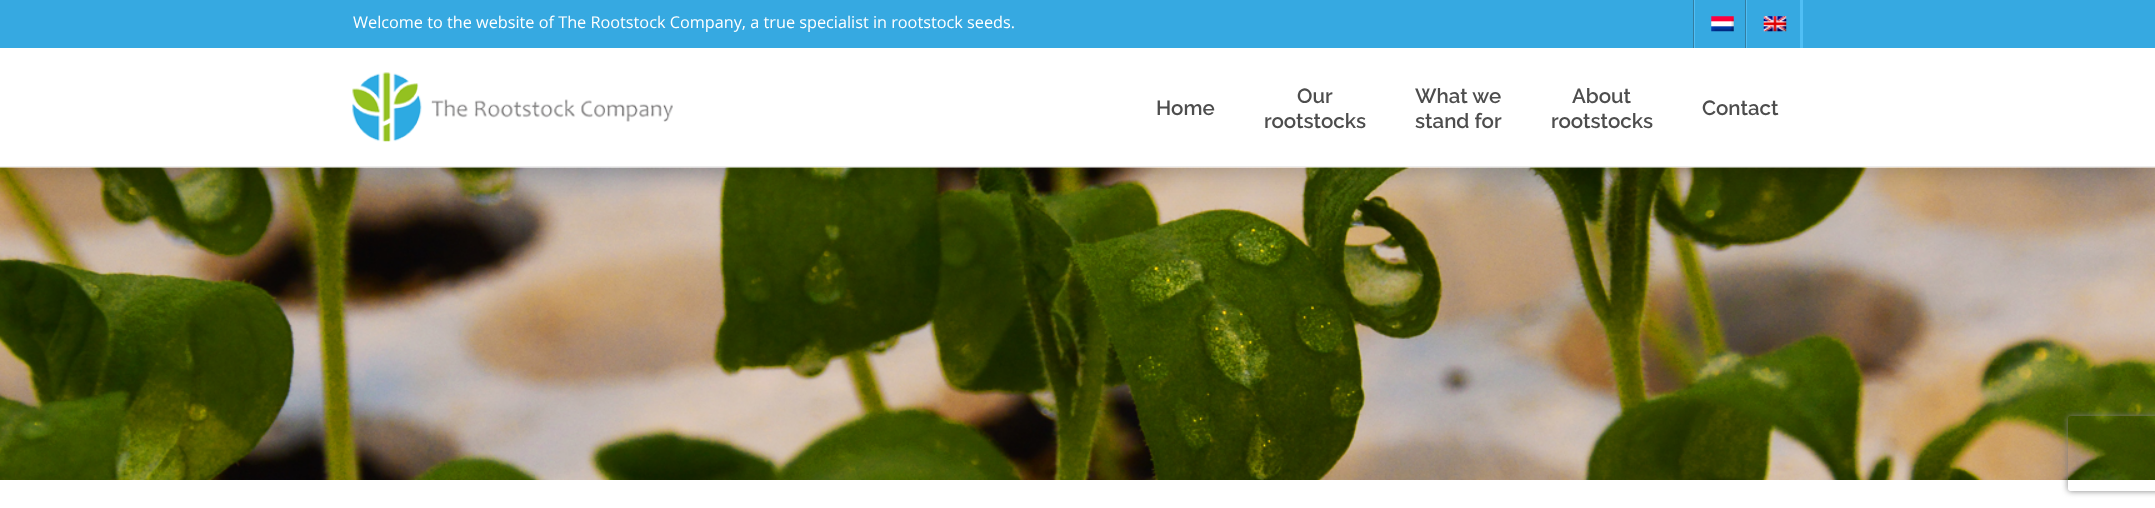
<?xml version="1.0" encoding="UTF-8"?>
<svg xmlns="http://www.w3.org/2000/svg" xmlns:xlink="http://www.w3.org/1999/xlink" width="2155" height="508">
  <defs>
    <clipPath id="clip1"><rect x="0" y="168" width="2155" height="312" /></clipPath>
    <clipPath id="clip2"><path d="M 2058 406 h 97 v 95 h -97 z m 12.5 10 h 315 c 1.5 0 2.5 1 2.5 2.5 v 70 c 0 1.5 -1 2.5 -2.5 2.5 h -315 c -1.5 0 -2.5 -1 -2.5 -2.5 v -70 c 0 -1.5 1 -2.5 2.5 -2.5 z" clip-rule="evenodd" /></clipPath>
  </defs>
  <rect width="100%" height="100%" fill="#ffffff" />
  <rect width="2155" height="48" fill="#36a9e1" />
  <path d="M 1693 0 v 48 h 52 h -51 v -48 z" fill="#347da1" />
  <rect x="1694" width="1" height="48" fill="#50bff5" />
  <image x="1711" y="16" width="23" height="16" xlink:href="image1.png" />
  <path d="M 1745 0 v 48 h 56 h -55 v -48 z" fill="#347da1" />
  <rect x="1800" width="3" height="48" fill="#50bff5" />
  <rect x="1746" width="1" height="48" fill="#50bff5" />
  <image x="1763" y="16" width="24" height="16" xlink:href="image2.png" />
  <rect y="166" width="2155" height="1" fill="#ededed" />
  <image x="352" y="72" width="321" height="70" xlink:href="image3.png" />
  <image x="0" y="167" width="2155" height="313" xlink:href="image4.png" />
  <g clip-path="url(#clip1)">
    <rect y="145" width="2155" height="25" rx="12.5" fill="#000000" fill-opacity="0.25" filter="blur(12.5px)" />
  </g>
  <g clip-path="url(#clip2)">
    <rect x="2068" y="416" width="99" height="75" rx="2.5" fill="#808080" filter="blur(3px)" />
  </g>
  <text x="353" y="28" style="font-family: Open Sans; font-size: 16.25px; fill: #ffffff">Welcome to the website of The Rootstock Company, a true specialist in rootstock seeds.</text>
  <text x="1156" y="115" style="font-family: Raleway; font-size: 20.5px; font-weight: 600; fill: #4d4d4d">Home</text>
  <text x="1297" y="103" style="font-family: Raleway; font-size: 20.5px; font-weight: 600; fill: #4d4d4d">Our</text>
  <text x="1264" y="128" style="font-family: Raleway; font-size: 20.5px; font-weight: 600; fill: #4d4d4d">rootstocks</text>
  <text x="1415" y="103" style="font-family: Raleway; font-size: 20.5px; font-weight: 600; fill: #4d4d4d">What we</text>
  <text x="1415" y="128" style="font-family: Raleway; font-size: 20.5px; font-weight: 600; fill: #4d4d4d">stand for</text>
  <text x="1572" y="103" style="font-family: Raleway; font-size: 20.5px; font-weight: 600; fill: #4d4d4d">About</text>
  <text x="1551" y="128" style="font-family: Raleway; font-size: 20.5px; font-weight: 600; fill: #4d4d4d">rootstocks</text>
  <text x="1702" y="115" style="font-family: Raleway; font-size: 20.5px; font-weight: 600; fill: #4d4d4d">Contact</text>
</svg>
